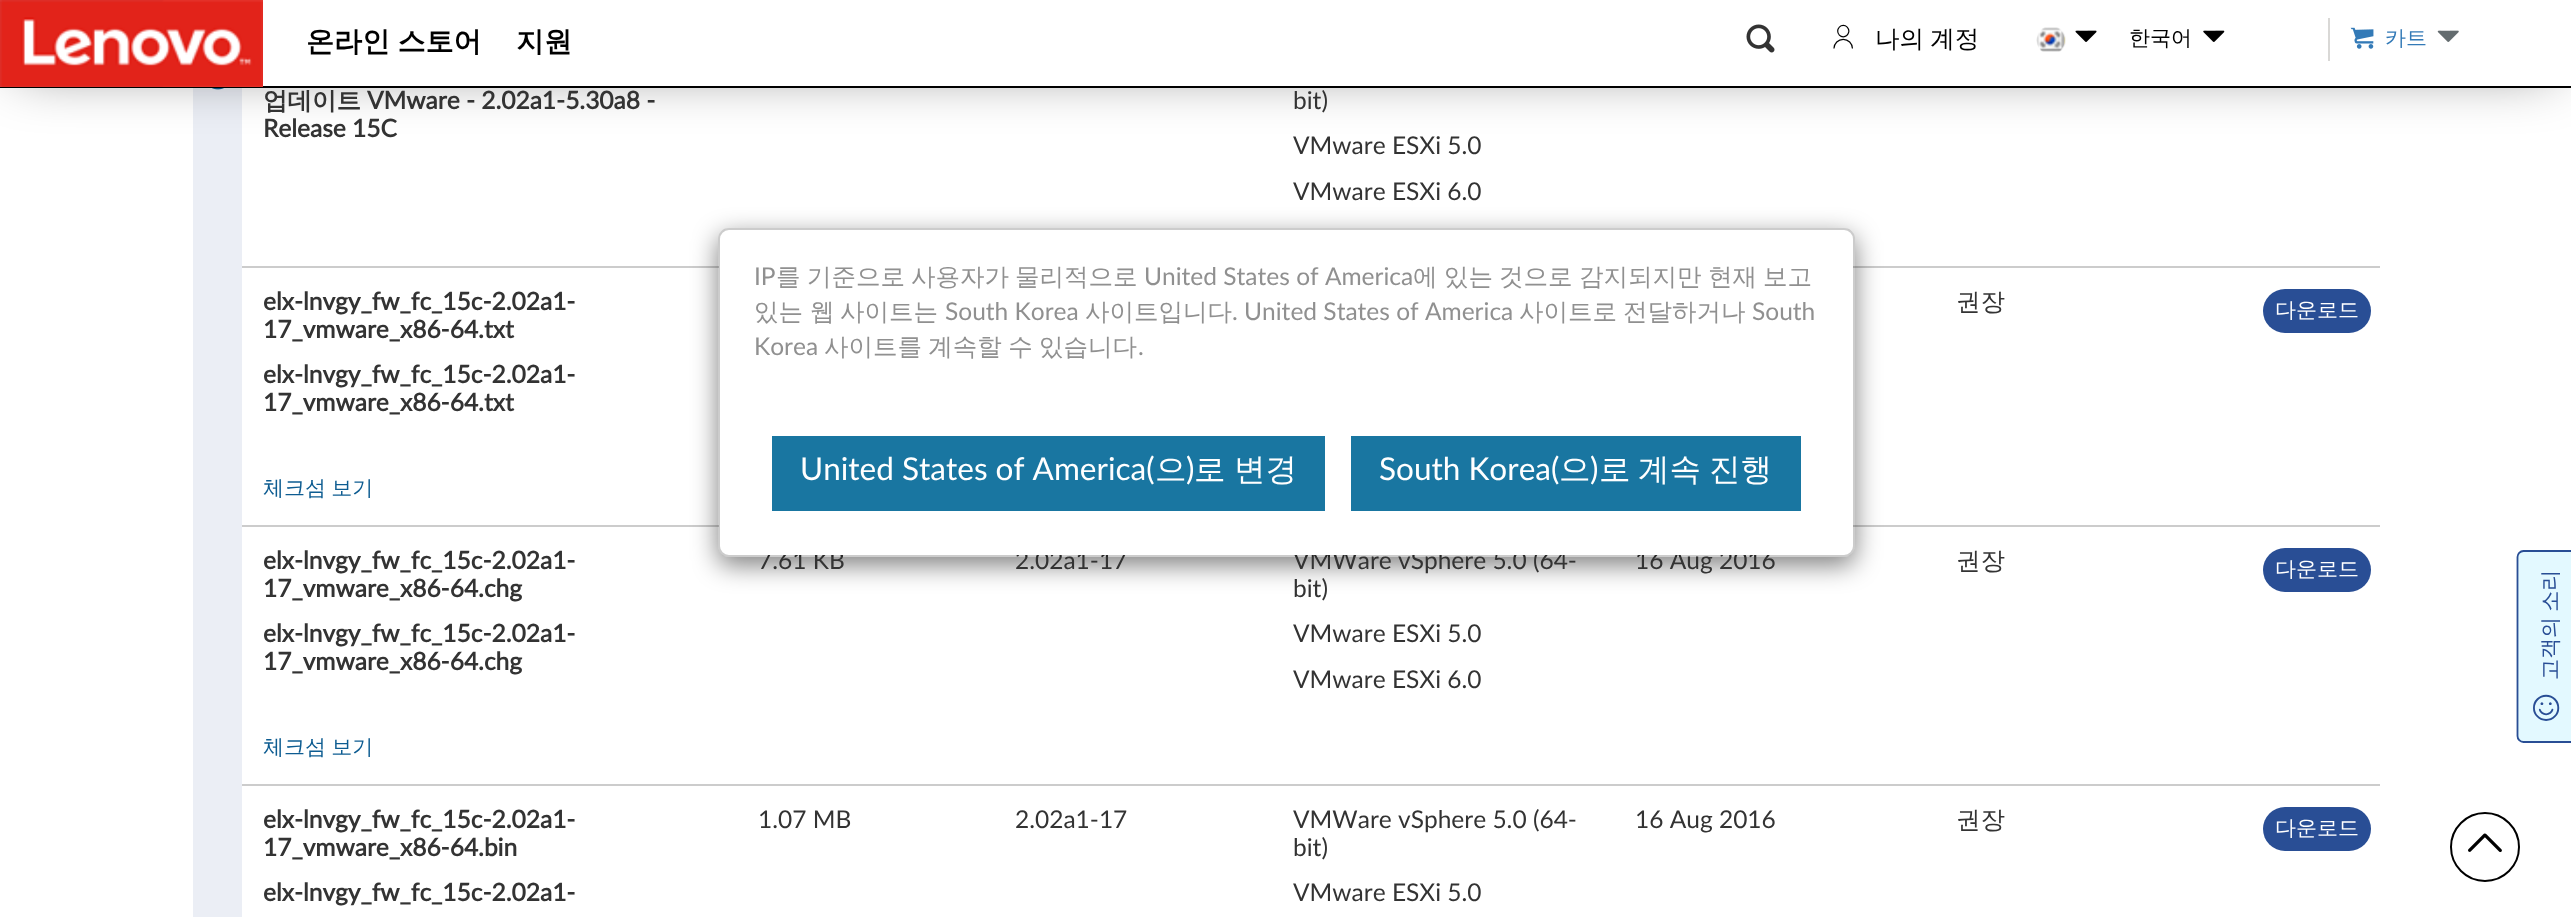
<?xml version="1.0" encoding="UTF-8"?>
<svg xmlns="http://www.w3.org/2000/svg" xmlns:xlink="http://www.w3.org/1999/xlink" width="2571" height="917">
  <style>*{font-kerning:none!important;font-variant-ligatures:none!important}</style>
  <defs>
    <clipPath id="clip1"><path d="M 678 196 h 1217 v 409 h -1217 z m 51 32 h 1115 c 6 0 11 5 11 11 v 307 c 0 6 -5 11 -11 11 h -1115 c -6 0 -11 -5 -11 -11 v -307 c 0 -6 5 -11 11 -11 z" clip-rule="evenodd" /></clipPath>
  </defs>
  <rect width="100%" height="100%" fill="#ffffff" />
  <rect x="193" y="88" width="49" height="829" fill="#ebeef5" />
  <image x="212" y="88" width="12" height="2" xlink:href="image8.png" />
  <rect x="18" y="18" width="2537" height="52" fill="#000000" fill-opacity="0.5" filter="blur(28px)" />
  <rect x="263" width="2308" height="86" fill="#ffffff" />
  <rect y="86" width="2571" height="2" fill="#000000" />
  <image x="0" y="0" width="263" height="87" xlink:href="image1.png" />
  <image x="1746" y="24" width="29" height="29" xlink:href="image2.png" />
  <image x="2036" y="27" width="30" height="25" xlink:href="image3.png" />
  <image x="2075" y="30" width="22" height="12" xlink:href="image4.png" />
  <image x="2203" y="30" width="22" height="12" xlink:href="image5.png" />
  <rect x="2328" y="18" width="2" height="43" fill="#d9d8d6" />
  <image x="2350" y="27" width="24" height="22" xlink:href="image6.png" />
  <image x="2437" y="30" width="22" height="12" xlink:href="image7.png" />
  <rect x="242" y="266" width="2138" height="2" fill="#cccccc" />
  <rect x="2263" y="289" width="108" height="44" rx="22" fill="#294e95" />
  <rect x="242" y="525" width="2138" height="2" fill="#cccccc" />
  <rect x="2263" y="548" width="108" height="44" rx="22" fill="#294e95" />
  <rect x="242" y="784" width="2138" height="2" fill="#cccccc" />
  <rect x="2263" y="807" width="108" height="44" rx="22" fill="#294e95" />
  <circle cx="2485" cy="847" r="34" fill="none" stroke="#000000" stroke-width="2" />
  <image x="2468" y="833" width="34" height="20" xlink:href="image9.png" />
  <g clip-path="url(#clip1)">
    <rect x="718" y="236" width="1137" height="329" rx="11" fill="#000000" fill-opacity="0.5" filter="blur(13px)" />
  </g>
  <path d="M 2517 736 v -179 c 0 -4 3 -7 7 -7 h 47 c 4 0 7 3 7 7 v 179 c 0 4 -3 7 -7 7 h -47 c -4 0 -7 -3 -7 -7 z" fill="#e3f9ff" />
  <path d="M 2517.5 736 v -179 c 0 -3 2.5 -6 6 -6 h 47.5 c 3 0 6 3 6 6 v 179 c 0 3 -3 6 -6 6 h -47.5 c -3.5 0 -6 -3 -6 -6 z" fill="none" stroke="#294e95" stroke-width="1.8" />
  <text x="306" y="51" word-spacing="-1" style="font-family: WenQuanYi Zen Hei; font-size: 28px; font-weight: bold; fill: #000000">온라인 스토어</text>
  <text x="516" y="51" style="font-family: WenQuanYi Zen Hei; font-size: 28px; font-weight: bold; fill: #000000">지원</text>
  <text x="1831" y="47" style="font-family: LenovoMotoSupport; font-size: 24.5px; fill: #000000">󡑆</text>
  <text x="1875" y="47" word-spacing="-1" style="font-family: WenQuanYi Zen Hei; font-size: 24.5px; font-weight: 500; fill: #000000">나의 계정</text>
  <text x="2129" y="45" style="font-family: WenQuanYi Zen Hei; font-size: 21px; font-weight: 500; fill: #000000">한국어</text>
  <text x="2385" y="45" style="font-family: WenQuanYi Zen Hei; font-size: 21px; font-weight: 500; fill: #337ab7">카트</text>
  <text x="263" y="109" style="font-family: WenQuanYi Zen Hei; font-size: 24.5px; font-weight: bold; fill: #333333">업데이트</text>
  <text x="367" y="109" style="font-family: Lato; font-size: 24.5px; font-weight: bold; fill: #333333">VMware - 2.02a1-5.30a8 -</text>
  <text x="263" y="137" style="font-family: Lato; font-size: 24.5px; font-weight: bold; fill: #333333">Release 15C</text>
  <text x="1293" y="109" style="font-family: Lato; font-size: 24.5px; fill: #333333">bit)</text>
  <text x="1293" y="154" style="font-family: Lato; font-size: 24.5px; fill: #333333">VMware ESXi 5.0</text>
  <text x="1293" y="200" style="font-family: Lato; font-size: 24.5px; fill: #333333">VMware ESXi 6.0</text>
  <text x="263" y="310" style="font-family: Lato; font-size: 24.5px; font-weight: bold; fill: #333333">elx-lnvgy_fw_fc_15c-2.02a1-</text>
  <text x="263" y="338" style="font-family: Lato; font-size: 24.5px; font-weight: bold; fill: #333333">17_vmware_x86-64.txt</text>
  <text x="263" y="383" style="font-family: Lato; font-size: 24.5px; font-weight: bold; fill: #333333">elx-lnvgy_fw_fc_15c-2.02a1-</text>
  <text x="263" y="411" style="font-family: Lato; font-size: 24.5px; font-weight: bold; fill: #333333">17_vmware_x86-64.txt</text>
  <text x="1956" y="310" style="font-family: WenQuanYi Zen Hei; font-size: 24.5px; font-weight: 500; fill: #333333">권장</text>
  <text x="2275" y="317" style="font-family: WenQuanYi Zen Hei; font-size: 21px; font-weight: 500; fill: #ffffff">다운로드</text>
  <text x="263" y="495" word-spacing="-1" style="font-family: WenQuanYi Zen Hei; font-size: 21px; font-weight: 500; fill: #0d5c91">체크섬 보기</text>
  <text x="263" y="569" style="font-family: Lato; font-size: 24.5px; font-weight: bold; fill: #333333">elx-lnvgy_fw_fc_15c-2.02a1-</text>
  <text x="263" y="597" style="font-family: Lato; font-size: 24.5px; font-weight: bold; fill: #333333">17_vmware_x86-64.chg</text>
  <text x="263" y="642" style="font-family: Lato; font-size: 24.5px; font-weight: bold; fill: #333333">elx-lnvgy_fw_fc_15c-2.02a1-</text>
  <text x="263" y="670" style="font-family: Lato; font-size: 24.5px; font-weight: bold; fill: #333333">17_vmware_x86-64.chg</text>
  <text x="758" y="569" style="font-family: Lato; font-size: 24.5px; fill: #333333">7.61 KB</text>
  <text x="1015" y="569" style="font-family: Lato; font-size: 24.5px; fill: #333333">2.02a1-17</text>
  <text x="1293" y="569" style="font-family: Lato; font-size: 24.5px; fill: #333333">VMWare vSphere 5.0 (64-</text>
  <text x="1293" y="597" style="font-family: Lato; font-size: 24.5px; fill: #333333">bit)</text>
  <text x="1293" y="642" style="font-family: Lato; font-size: 24.5px; fill: #333333">VMware ESXi 5.0</text>
  <text x="1293" y="688" style="font-family: Lato; font-size: 24.5px; fill: #333333">VMware ESXi 6.0</text>
  <text x="1635" y="569" style="font-family: Lato; font-size: 24.5px; fill: #333333">16 Aug 2016</text>
  <text x="1956" y="569" style="font-family: WenQuanYi Zen Hei; font-size: 24.5px; font-weight: 500; fill: #333333">권장</text>
  <text x="2275" y="576" style="font-family: WenQuanYi Zen Hei; font-size: 21px; font-weight: 500; fill: #ffffff">다운로드</text>
  <text x="263" y="754" word-spacing="-1" style="font-family: WenQuanYi Zen Hei; font-size: 21px; font-weight: 500; fill: #0d5c91">체크섬 보기</text>
  <text x="263" y="828" style="font-family: Lato; font-size: 24.5px; font-weight: bold; fill: #333333">elx-lnvgy_fw_fc_15c-2.02a1-</text>
  <text x="263" y="856" style="font-family: Lato; font-size: 24.5px; font-weight: bold; fill: #333333">17_vmware_x86-64.bin</text>
  <text x="263" y="901" style="font-family: Lato; font-size: 24.5px; font-weight: bold; fill: #333333">elx-lnvgy_fw_fc_15c-2.02a1-</text>
  <text x="758" y="828" style="font-family: Lato; font-size: 24.5px; fill: #333333">1.07 MB</text>
  <text x="1015" y="828" style="font-family: Lato; font-size: 24.5px; fill: #333333">2.02a1-17</text>
  <text x="1293" y="828" style="font-family: Lato; font-size: 24.5px; fill: #333333">VMWare vSphere 5.0 (64-</text>
  <text x="1293" y="856" style="font-family: Lato; font-size: 24.5px; fill: #333333">bit)</text>
  <text x="1293" y="901" style="font-family: Lato; font-size: 24.5px; fill: #333333">VMware ESXi 5.0</text>
  <text x="1635" y="828" style="font-family: Lato; font-size: 24.5px; fill: #333333">16 Aug 2016</text>
  <text x="1956" y="828" style="font-family: WenQuanYi Zen Hei; font-size: 24.5px; font-weight: 500; fill: #333333">권장</text>
  <text x="2275" y="835" style="font-family: WenQuanYi Zen Hei; font-size: 21px; font-weight: 500; fill: #ffffff">다운로드</text>
  <rect x="719" y="229" width="1134" height="326" rx="9" fill="#ffffff" />
  <rect x="719" y="229" width="1135" height="327" rx="10" fill="none" stroke="#000000" stroke-opacity="0.2" stroke-width="2" />
  <text x="754" y="285" style="font-family: Lato; font-size: 24.5px; fill: #909090">IP</text>
  <text x="776" y="285" style="font-family: WenQuanYi Zen Hei; font-size: 24.5px; font-weight: 500; fill: #909090">를</text>
  <text x="807" y="285" style="font-family: WenQuanYi Zen Hei; font-size: 24.5px; font-weight: 500; fill: #909090">기준으로</text>
  <text x="911" y="285" style="font-family: WenQuanYi Zen Hei; font-size: 24.5px; font-weight: 500; fill: #909090">사용자가</text>
  <text x="1015" y="285" style="font-family: WenQuanYi Zen Hei; font-size: 24.5px; font-weight: 500; fill: #909090">물리적으로</text>
  <text x="1144" y="285" style="font-family: Lato; font-size: 24.5px; fill: #909090">United States of America</text>
  <text x="1413" y="285" style="font-family: WenQuanYi Zen Hei; font-size: 24.5px; font-weight: 500; fill: #909090">에</text>
  <text x="1444" y="285" style="font-family: WenQuanYi Zen Hei; font-size: 24.5px; font-weight: 500; fill: #909090">있는</text>
  <text x="1499" y="285" style="font-family: WenQuanYi Zen Hei; font-size: 24.5px; font-weight: 500; fill: #909090">것으로</text>
  <text x="1579" y="285" style="font-family: WenQuanYi Zen Hei; font-size: 24.5px; font-weight: 500; fill: #909090">감지되지만</text>
  <text x="1708" y="285" style="font-family: WenQuanYi Zen Hei; font-size: 24.5px; font-weight: 500; fill: #909090">현재</text>
  <text x="1763" y="285" style="font-family: WenQuanYi Zen Hei; font-size: 24.5px; font-weight: 500; fill: #909090">보고</text>
  <text x="754" y="320" style="font-family: WenQuanYi Zen Hei; font-size: 24.5px; font-weight: 500; fill: #909090">있는</text>
  <text x="810" y="320" style="font-family: WenQuanYi Zen Hei; font-size: 24.5px; font-weight: 500; fill: #909090">웹</text>
  <text x="840" y="320" style="font-family: WenQuanYi Zen Hei; font-size: 24.5px; font-weight: 500; fill: #909090">사이트는</text>
  <text x="945" y="320" style="font-family: Lato; font-size: 24.5px; fill: #909090">South Korea</text>
  <text x="1085" y="320" style="font-family: WenQuanYi Zen Hei; font-size: 24.5px; font-weight: 500; fill: #909090">사이트입니다</text>
  <text x="1232" y="320" style="font-family: Lato; font-size: 24.5px; fill: #909090">. United States of America</text>
  <text x="1519" y="320" style="font-family: WenQuanYi Zen Hei; font-size: 24.5px; font-weight: 500; fill: #909090">사이트로</text>
  <text x="1623" y="320" style="font-family: WenQuanYi Zen Hei; font-size: 24.5px; font-weight: 500; fill: #909090">전달하거나</text>
  <text x="1752" y="320" style="font-family: Lato; font-size: 24.5px; fill: #909090">South</text>
  <text x="754" y="355" style="font-family: Lato; font-size: 24.5px; fill: #909090">Korea</text>
  <text x="824" y="355" word-spacing="-1" style="font-family: WenQuanYi Zen Hei; font-size: 24.5px; font-weight: 500; fill: #909090">사이트를 계속할 수 있습니다</text>
  <text x="1138" y="355" style="font-family: Lato; font-size: 24.5px; fill: #909090">.</text>
  <rect x="772" y="436" width="553" height="75" fill="#1976a1" />
  <text x="800" y="480" style="font-family: Lato; font-size: 31.5px; fill: #ffffff">United States of America(</text>
  <text x="1155" y="480" style="font-family: WenQuanYi Zen Hei; font-size: 31.5px; font-weight: 500; fill: #ffffff">으</text>
  <text x="1186" y="480" style="font-family: Lato; font-size: 31.5px; fill: #ffffff">)</text>
  <text x="1194" y="480" style="font-family: WenQuanYi Zen Hei; font-size: 31.5px; font-weight: 500; fill: #ffffff">로</text>
  <text x="1234" y="480" style="font-family: WenQuanYi Zen Hei; font-size: 31.5px; font-weight: 500; fill: #ffffff">변경</text>
  <rect x="1351" y="436" width="450" height="75" fill="#1976a1" />
  <text x="1379" y="480" style="font-family: Lato; font-size: 31.5px; fill: #ffffff">South Korea(</text>
  <text x="1559" y="480" style="font-family: WenQuanYi Zen Hei; font-size: 31.5px; font-weight: 500; fill: #ffffff">으</text>
  <text x="1590" y="480" style="font-family: Lato; font-size: 31.5px; fill: #ffffff">)</text>
  <text x="1599" y="480" style="font-family: WenQuanYi Zen Hei; font-size: 31.5px; font-weight: 500; fill: #ffffff">로</text>
  <text x="1638" y="480" style="font-family: WenQuanYi Zen Hei; font-size: 31.5px; font-weight: 500; fill: #ffffff">계속</text>
  <text x="1709" y="480" style="font-family: WenQuanYi Zen Hei; font-size: 31.5px; font-weight: 500; fill: #ffffff">진행</text>
  <text x="2557" y="680" transform="rotate(-90 2557 680)" word-spacing="-1" style="font-family: WenQuanYi Zen Hei; font-size: 21px; font-weight: 500; fill: #294e95">고객의 소리</text>
  <text x="2533" y="721" style="font-family: LenovoMotoSupport; font-size: 28px; fill: #294e95">󡉵</text>
</svg>
